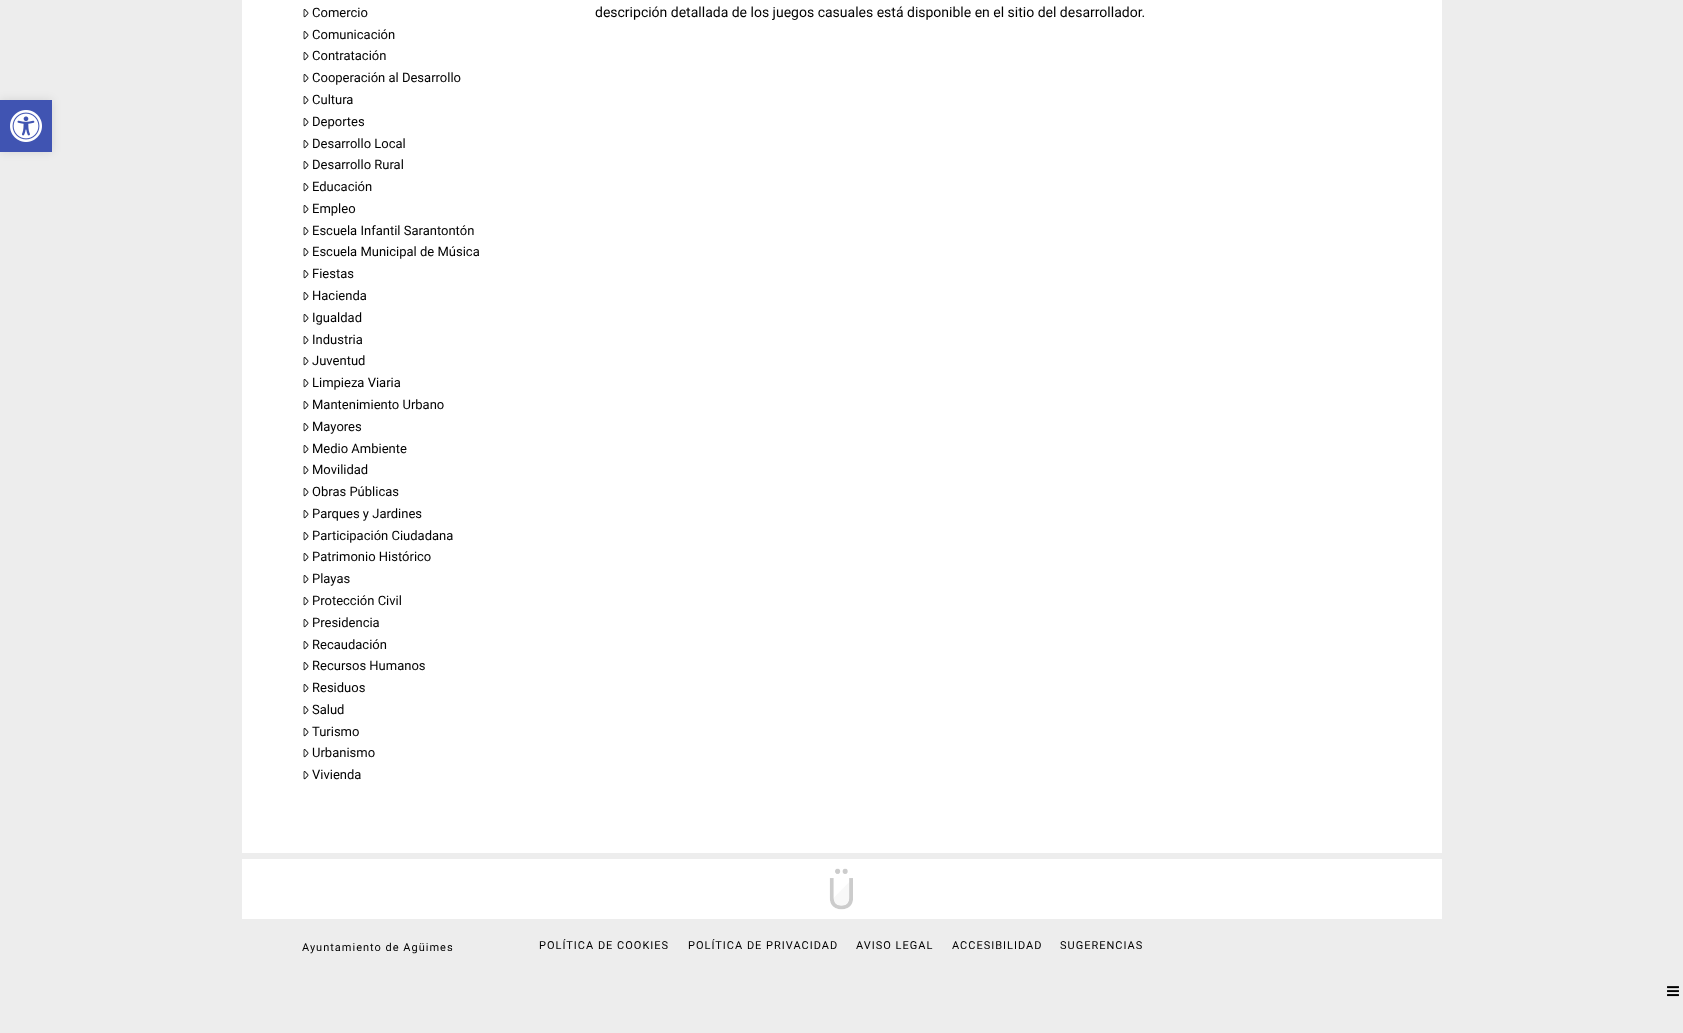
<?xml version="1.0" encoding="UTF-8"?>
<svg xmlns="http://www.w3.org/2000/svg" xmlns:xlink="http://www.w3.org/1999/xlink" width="1683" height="1033">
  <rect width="100%" height="100%" fill="#ededed" />
  <rect y="100" width="52" height="52" fill="#000000" fill-opacity="0.1" filter="blur(5px)" />
  <rect y="100" width="52" height="52" fill="#4054b2" />
  <image x="10" y="110" width="32" height="32" xlink:href="image1.png" />
  <rect x="242" width="1200" height="919" fill="#ffffff" />
  <image x="303" y="9" width="6" height="9" xlink:href="image2.png" />
  <image x="303" y="31" width="6" height="9" xlink:href="image2.png" />
  <image x="303" y="52" width="6" height="9" xlink:href="image2.png" />
  <image x="303" y="74" width="6" height="9" xlink:href="image2.png" />
  <image x="303" y="96" width="6" height="9" xlink:href="image2.png" />
  <image x="303" y="118" width="6" height="9" xlink:href="image2.png" />
  <image x="303" y="140" width="6" height="9" xlink:href="image2.png" />
  <image x="303" y="161" width="6" height="9" xlink:href="image2.png" />
  <image x="303" y="183" width="6" height="9" xlink:href="image2.png" />
  <image x="303" y="205" width="6" height="9" xlink:href="image2.png" />
  <image x="303" y="227" width="6" height="9" xlink:href="image2.png" />
  <image x="303" y="248" width="6" height="9" xlink:href="image2.png" />
  <image x="303" y="270" width="6" height="9" xlink:href="image2.png" />
  <image x="303" y="292" width="6" height="9" xlink:href="image2.png" />
  <image x="303" y="314" width="6" height="9" xlink:href="image2.png" />
  <image x="303" y="336" width="6" height="9" xlink:href="image2.png" />
  <image x="303" y="357" width="6" height="9" xlink:href="image2.png" />
  <image x="303" y="379" width="6" height="9" xlink:href="image2.png" />
  <image x="303" y="401" width="6" height="9" xlink:href="image2.png" />
  <image x="303" y="423" width="6" height="9" xlink:href="image2.png" />
  <image x="303" y="445" width="6" height="9" xlink:href="image2.png" />
  <image x="303" y="466" width="6" height="9" xlink:href="image2.png" />
  <image x="303" y="488" width="6" height="9" xlink:href="image2.png" />
  <image x="303" y="510" width="6" height="9" xlink:href="image2.png" />
  <image x="303" y="532" width="6" height="9" xlink:href="image2.png" />
  <image x="303" y="553" width="6" height="9" xlink:href="image2.png" />
  <image x="303" y="575" width="6" height="9" xlink:href="image2.png" />
  <image x="303" y="597" width="6" height="9" xlink:href="image2.png" />
  <image x="303" y="619" width="6" height="9" xlink:href="image2.png" />
  <image x="303" y="641" width="6" height="9" xlink:href="image2.png" />
  <image x="303" y="662" width="6" height="9" xlink:href="image2.png" />
  <image x="303" y="684" width="6" height="9" xlink:href="image2.png" />
  <image x="303" y="706" width="6" height="9" xlink:href="image2.png" />
  <image x="303" y="728" width="6" height="9" xlink:href="image2.png" />
  <image x="303" y="749" width="6" height="9" xlink:href="image2.png" />
  <image x="303" y="771" width="6" height="9" xlink:href="image2.png" />
  <image x="829" y="868" width="24" height="42" xlink:href="image3.png" />
  <rect x="242" y="853" width="1200" height="6" fill="#ededed" />
  <image x="1667" y="986" width="12" height="11" xlink:href="image4.png" />
  <text x="312" y="17" style="font-family: Roboto; font-size: 13px; fill: #000000">Comercio</text>
  <text x="312" y="39" style="font-family: Roboto; font-size: 13px; fill: #000000">Comunicación</text>
  <text x="312" y="60" style="font-family: Roboto; font-size: 13px; fill: #000000">Contratación</text>
  <text x="312" y="82" style="font-family: Roboto; font-size: 13px; fill: #000000">Cooperación al Desarrollo</text>
  <text x="312" y="104" style="font-family: Roboto; font-size: 13px; fill: #000000">Cultura</text>
  <text x="312" y="126" style="font-family: Roboto; font-size: 13px; fill: #000000">Deportes</text>
  <text x="312" y="148" style="font-family: Roboto; font-size: 13px; fill: #000000">Desarrollo Local</text>
  <text x="312" y="169" style="font-family: Roboto; font-size: 13px; fill: #000000">Desarrollo Rural</text>
  <text x="312" y="191" style="font-family: Roboto; font-size: 13px; fill: #000000">Educación</text>
  <text x="312" y="213" style="font-family: Roboto; font-size: 13px; fill: #000000">Empleo</text>
  <text x="312" y="235" style="font-family: Roboto; font-size: 13px; fill: #000000">Escuela Infantil Sarantontón</text>
  <text x="312" y="256" style="font-family: Roboto; font-size: 13px; fill: #000000">Escuela Municipal de Música</text>
  <text x="312" y="278" style="font-family: Roboto; font-size: 13px; fill: #000000">Fiestas</text>
  <text x="312" y="300" style="font-family: Roboto; font-size: 13px; fill: #000000">Hacienda</text>
  <text x="312" y="322" style="font-family: Roboto; font-size: 13px; fill: #000000">Igualdad</text>
  <text x="312" y="344" style="font-family: Roboto; font-size: 13px; fill: #000000">Industria</text>
  <text x="312" y="365" style="font-family: Roboto; font-size: 13px; fill: #000000">Juventud</text>
  <text x="312" y="387" style="font-family: Roboto; font-size: 13px; fill: #000000">Limpieza Viaria</text>
  <text x="312" y="409" style="font-family: Roboto; font-size: 13px; fill: #000000">Mantenimiento Urbano</text>
  <text x="312" y="431" style="font-family: Roboto; font-size: 13px; fill: #000000">Mayores</text>
  <text x="312" y="453" style="font-family: Roboto; font-size: 13px; fill: #000000">Medio Ambiente</text>
  <text x="312" y="474" style="font-family: Roboto; font-size: 13px; fill: #000000">Movilidad</text>
  <text x="312" y="496" style="font-family: Roboto; font-size: 13px; fill: #000000">Obras Públicas</text>
  <text x="312" y="518" style="font-family: Roboto; font-size: 13px; fill: #000000">Parques y Jardines</text>
  <text x="312" y="540" style="font-family: Roboto; font-size: 13px; fill: #000000">Participación Ciudadana</text>
  <text x="312" y="561" style="font-family: Roboto; font-size: 13px; fill: #000000">Patrimonio Histórico</text>
  <text x="312" y="583" style="font-family: Roboto; font-size: 13px; fill: #000000">Playas</text>
  <text x="312" y="605" style="font-family: Roboto; font-size: 13px; fill: #000000">Protección Civil</text>
  <text x="312" y="627" style="font-family: Roboto; font-size: 13px; fill: #000000">Presidencia</text>
  <text x="312" y="649" style="font-family: Roboto; font-size: 13px; fill: #000000">Recaudación</text>
  <text x="312" y="670" style="font-family: Roboto; font-size: 13px; fill: #000000">Recursos Humanos</text>
  <text x="312" y="692" style="font-family: Roboto; font-size: 13px; fill: #000000">Residuos</text>
  <text x="312" y="714" style="font-family: Roboto; font-size: 13px; fill: #000000">Salud</text>
  <text x="312" y="736" style="font-family: Roboto; font-size: 13px; fill: #000000">Turismo</text>
  <text x="312" y="757" style="font-family: Roboto; font-size: 13px; fill: #000000">Urbanismo</text>
  <text x="312" y="779" style="font-family: Roboto; font-size: 13px; fill: #000000">Vivienda</text>
  <text x="595" y="17" style="font-family: Roboto; font-size: 14px; fill: #000000">descripción detallada de los juegos casuales está disponible en el sitio del desarrollador.</text>
  <text x="302" y="951" style="font-family: Roboto; font-size: 11px; letter-spacing: 1px; fill: #000000">Ayuntamiento de Agüimes</text>
  <text x="539" y="949" style="font-family: Roboto; font-size: 11px; letter-spacing: 1px; fill: #000000">POLÍTICA DE COOKIES</text>
  <text x="688" y="949" style="font-family: Roboto; font-size: 11px; letter-spacing: 1px; fill: #000000">POLÍTICA DE PRIVACIDAD</text>
  <text x="856" y="949" style="font-family: Roboto; font-size: 11px; letter-spacing: 1px; fill: #000000">AVISO LEGAL</text>
  <text x="952" y="949" style="font-family: Roboto; font-size: 11px; letter-spacing: 1px; fill: #000000">ACCESIBILIDAD</text>
  <text x="1060" y="949" style="font-family: Roboto; font-size: 11px; letter-spacing: 1px; fill: #000000">SUGERENCIAS</text>
</svg>
